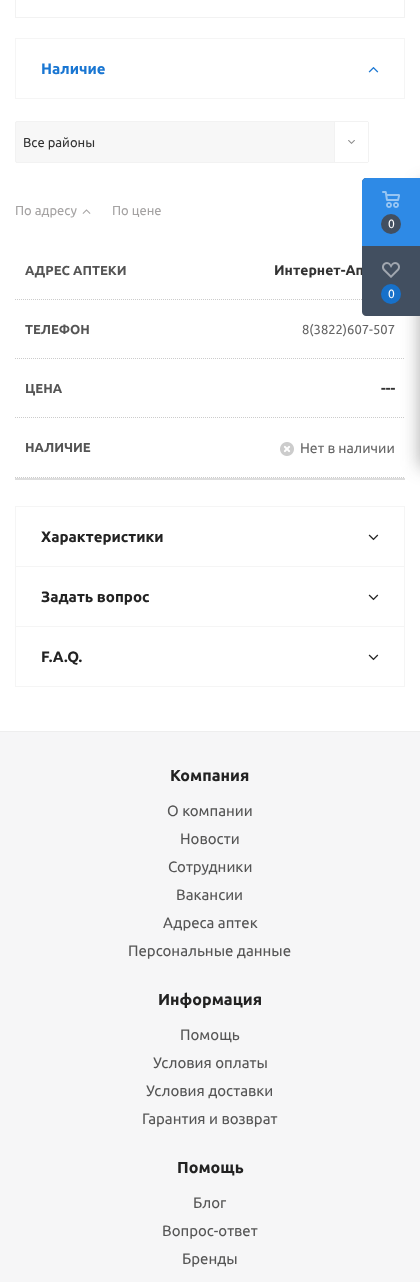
<?xml version="1.0" encoding="UTF-8"?>
<svg xmlns="http://www.w3.org/2000/svg" xmlns:xlink="http://www.w3.org/1999/xlink" width="420" height="1282">
  <rect width="100%" height="100%" fill="#ffffff" />
  <rect x="15.5" y="-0.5" width="389" height="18" fill="none" stroke="#f2f2f2" />
  <rect x="15.5" y="38.5" width="389" height="60" fill="none" stroke="#f5f5f5" />
  <image x="368" y="67" width="11" height="6" xlink:href="image1.png" />
  <rect x="15.5" y="121.5" width="353" height="41" rx="1.5" fill="#f7f7f7" stroke="#f2f2f2" />
  <rect x="335" y="122" width="33" height="40" fill="#ffffff" />
  <rect x="334" y="122" width="1" height="40" fill="#f2f2f2" />
  <image x="348" y="140" width="7" height="4" xlink:href="image2.png" />
  <image x="82" y="209" width="9" height="5" xlink:href="image3.png" />
  <rect x="15" y="478" width="390" height="2" fill="#dddddd" />
  <path d="M 15 299.5 h 390" fill="none" stroke="#cccccc" stroke-dasharray="1 1" />
  <path d="M 15 358.5 h 390" fill="none" stroke="#cccccc" stroke-dasharray="1 1" />
  <path d="M 15 417.5 h 390" fill="none" stroke="#cccccc" stroke-dasharray="1 1" />
  <path d="M 15 477.5 h 390" fill="none" stroke="#cccccc" stroke-dasharray="1 1" />
  <image x="280" y="442" width="14" height="14" xlink:href="image4.png" />
  <rect x="15.5" y="506.5" width="389" height="60" fill="none" stroke="#f5f5f5" />
  <image x="368" y="534" width="11" height="7" xlink:href="image5.png" />
  <rect x="15.5" y="566.5" width="389" height="60" fill="none" stroke="#f5f5f5" />
  <image x="368" y="594" width="11" height="7" xlink:href="image5.png" />
  <rect x="15.5" y="626.5" width="389" height="60" fill="none" stroke="#f5f5f5" />
  <image x="368" y="654" width="11" height="7" xlink:href="image5.png" />
  <rect x="420" y="184" width="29" height="283" rx="2" fill="#2c2c2c" fill-opacity="0.4" filter="blur(9px)" />
  <rect y="731" width="420" height="1" fill="#eeeeee" />
  <rect y="732" width="420" height="550" fill="#f6f6f7" />
  <text x="41" y="74" style="font-family: Ubuntu; font-size: 15px; font-weight: bold; fill: #1976d2">Наличие</text>
  <text x="23" y="147" style="font-family: Ubuntu; font-size: 13px; fill: #333333">Все районы</text>
  <text x="15" y="215" style="font-family: Ubuntu; font-size: 13px; fill: #a5a3a3">По адресу</text>
  <text x="112" y="215" style="font-family: Ubuntu; font-size: 13px; fill: #a5a3a3">По цене</text>
  <text x="25" y="275" style="font-family: Ubuntu; font-size: 13px; font-weight: bold; fill: #555555">АДРЕС АПТЕКИ</text>
  <text x="274" y="275" style="font-family: Ubuntu; font-size: 14px; font-weight: bold; fill: #333333">Интернет-Ап</text>
  <text x="25" y="334" style="font-family: Ubuntu; font-size: 13px; font-weight: bold; fill: #555555">ТЕЛЕФОН</text>
  <text x="302" y="334" style="font-family: Ubuntu; font-size: 13px; fill: #666666">8(3822)607-507</text>
  <text x="25" y="393" style="font-family: Ubuntu; font-size: 13px; font-weight: bold; fill: #555555">ЦЕНА</text>
  <text x="381" y="393" style="font-family: Ubuntu; font-size: 14px; font-weight: bold; fill: #333333">---</text>
  <text x="25" y="452" style="font-family: Ubuntu; font-size: 13px; font-weight: bold; fill: #555555">НАЛИЧИЕ</text>
  <text x="300" y="453" style="font-family: Ubuntu; font-size: 14px; fill: #666666">Нет в наличии</text>
  <text x="41" y="542" style="font-family: Ubuntu; font-size: 15px; font-weight: bold; fill: #222222">Характеристики</text>
  <text x="41" y="602" style="font-family: Ubuntu; font-size: 15px; font-weight: bold; fill: #222222">Задать вопрос</text>
  <text x="41" y="662" style="font-family: Ubuntu; font-size: 15px; font-weight: bold; fill: #222222">F.A.Q.</text>
  <path d="M 366 178 h 54 v 138 h -54 c -2 0 -4 -2 -4 -4 v -130 c 0 -2 2 -4 4 -4 z" fill="#424f60" />
  <path d="M 366 178 h 54 v 68 h -58 v -64 c 0 -2 2 -4 4 -4 z" fill="#2e8ae6" />
  <image x="382" y="191" width="18" height="17" xlink:href="image6.png" />
  <circle cx="391" cy="224" r="10" fill="#424f60" />
  <text x="388" y="228" style="font-family: Ubuntu; font-size: 12px; fill: #ffffff">0</text>
  <image x="382" y="262" width="18" height="16" xlink:href="image7.png" />
  <circle cx="391" cy="294" r="10" fill="#1771ca" />
  <text x="388" y="298" style="font-family: Ubuntu; font-size: 12px; fill: #ffffff">0</text>
  <text x="170" y="781" style="font-family: Ubuntu; font-size: 16px; font-weight: bold; fill: #222222">Компания</text>
  <text x="167" y="816" style="font-family: Ubuntu; font-size: 15px; fill: #555555">О компании</text>
  <text x="180" y="844" style="font-family: Ubuntu; font-size: 15px; fill: #555555">Новости</text>
  <text x="168" y="872" style="font-family: Ubuntu; font-size: 15px; fill: #555555">Сотрудники</text>
  <text x="176" y="900" style="font-family: Ubuntu; font-size: 15px; fill: #555555">Вакансии</text>
  <text x="163" y="928" style="font-family: Ubuntu; font-size: 15px; fill: #555555">Адреса аптек</text>
  <text x="128" y="956" style="font-family: Ubuntu; font-size: 15px; fill: #555555">Персональные данные</text>
  <text x="158" y="1005" style="font-family: Ubuntu; font-size: 16px; font-weight: bold; fill: #222222">Информация</text>
  <text x="180" y="1040" style="font-family: Ubuntu; font-size: 15px; fill: #555555">Помощь</text>
  <text x="153" y="1068" style="font-family: Ubuntu; font-size: 15px; fill: #555555">Условия оплаты</text>
  <text x="146" y="1096" style="font-family: Ubuntu; font-size: 15px; fill: #555555">Условия доставки</text>
  <text x="142" y="1124" style="font-family: Ubuntu; font-size: 15px; fill: #555555">Гарантия и возврат</text>
  <text x="177" y="1173" style="font-family: Ubuntu; font-size: 16px; font-weight: bold; fill: #222222">Помощь</text>
  <text x="193" y="1208" style="font-family: Ubuntu; font-size: 15px; fill: #555555">Блог</text>
  <text x="162" y="1236" style="font-family: Ubuntu; font-size: 15px; fill: #555555">Вопрос-ответ</text>
  <text x="182" y="1264" style="font-family: Ubuntu; font-size: 15px; fill: #555555">Бренды</text>
</svg>
